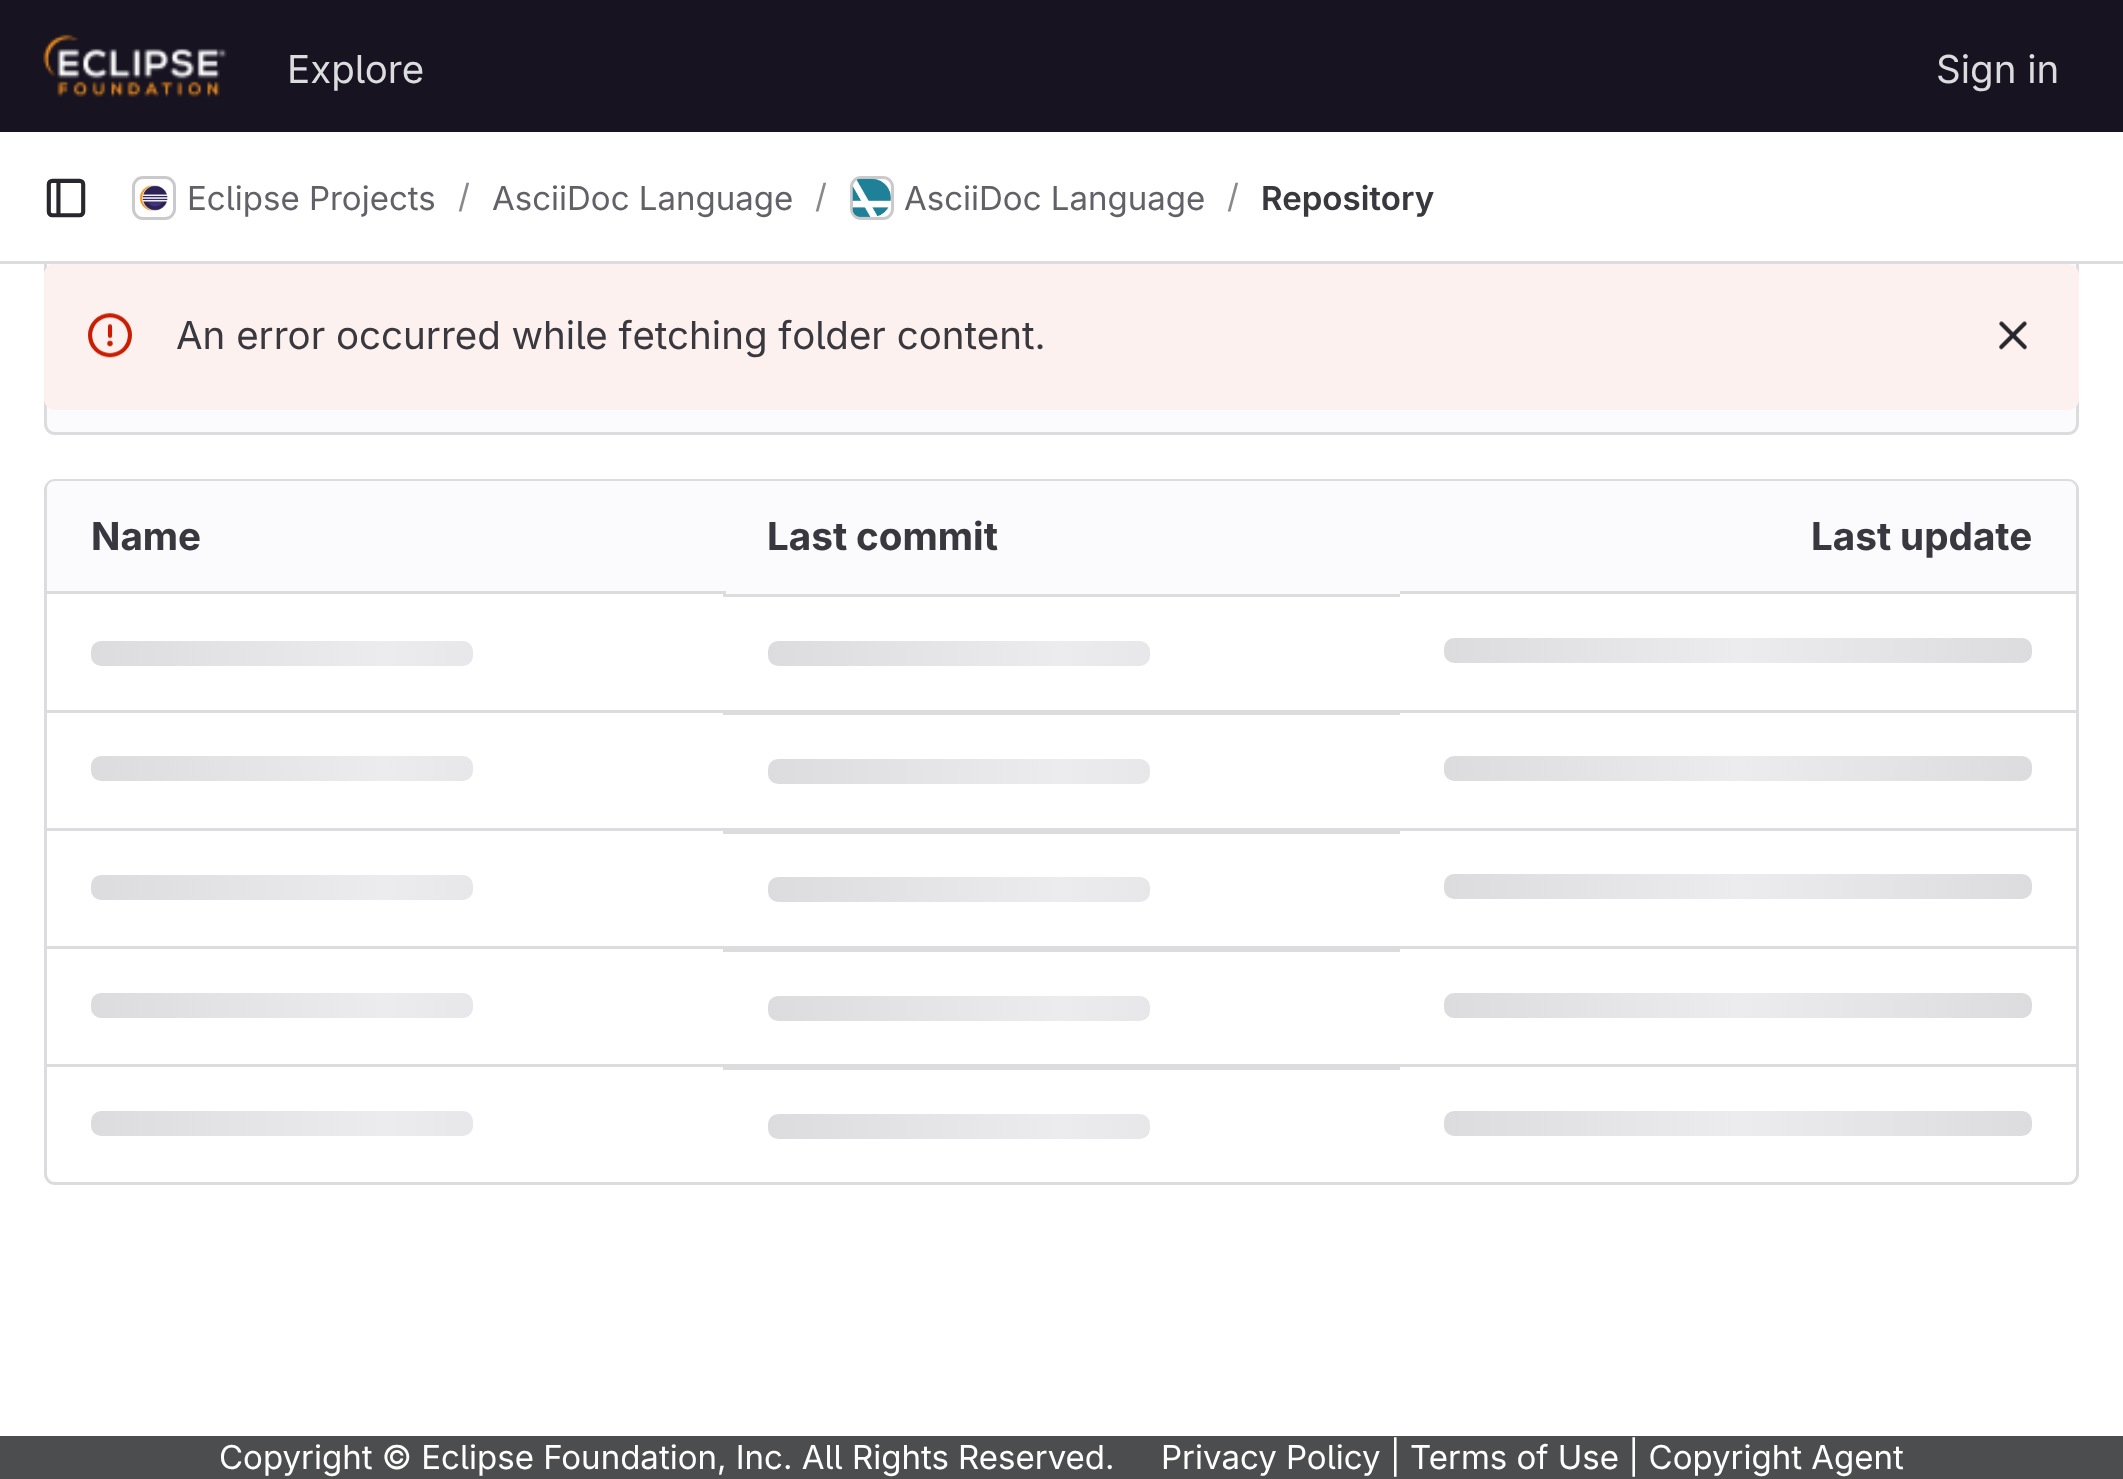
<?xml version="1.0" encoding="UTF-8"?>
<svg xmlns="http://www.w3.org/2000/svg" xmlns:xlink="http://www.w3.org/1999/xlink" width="2123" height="1479">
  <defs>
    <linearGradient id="g1" gradientUnits="userSpaceOnUse" x1="91" y1="641" x2="679" y2="641"><stop offset="0" stop-color="#dcdcde" /><stop offset="0.5" stop-color="#ececef" /><stop offset="1" stop-color="#dcdcde" /></linearGradient>
    <linearGradient id="g2" gradientUnits="userSpaceOnUse" x1="768" y1="641" x2="1355" y2="641"><stop offset="0" stop-color="#dcdcde" /><stop offset="0.5" stop-color="#ececef" /><stop offset="1" stop-color="#dcdcde" /></linearGradient>
    <linearGradient id="g3" gradientUnits="userSpaceOnUse" x1="1444" y1="638" x2="2032" y2="638"><stop offset="0" stop-color="#dcdcde" /><stop offset="0.5" stop-color="#ececef" /><stop offset="1" stop-color="#dcdcde" /></linearGradient>
    <linearGradient id="g4" gradientUnits="userSpaceOnUse" x1="91" y1="756" x2="679" y2="756"><stop offset="0" stop-color="#dcdcde" /><stop offset="0.5" stop-color="#ececef" /><stop offset="1" stop-color="#dcdcde" /></linearGradient>
    <linearGradient id="g5" gradientUnits="userSpaceOnUse" x1="768" y1="759" x2="1355" y2="759"><stop offset="0" stop-color="#dcdcde" /><stop offset="0.5" stop-color="#ececef" /><stop offset="1" stop-color="#dcdcde" /></linearGradient>
    <linearGradient id="g6" gradientUnits="userSpaceOnUse" x1="1444" y1="756" x2="2032" y2="756"><stop offset="0" stop-color="#dcdcde" /><stop offset="0.5" stop-color="#ececef" /><stop offset="1" stop-color="#dcdcde" /></linearGradient>
    <linearGradient id="g7" gradientUnits="userSpaceOnUse" x1="91" y1="875" x2="679" y2="875"><stop offset="0" stop-color="#dcdcde" /><stop offset="0.5" stop-color="#ececef" /><stop offset="1" stop-color="#dcdcde" /></linearGradient>
    <linearGradient id="g8" gradientUnits="userSpaceOnUse" x1="768" y1="877" x2="1355" y2="877"><stop offset="0" stop-color="#dcdcde" /><stop offset="0.5" stop-color="#ececef" /><stop offset="1" stop-color="#dcdcde" /></linearGradient>
    <linearGradient id="g9" gradientUnits="userSpaceOnUse" x1="1444" y1="874" x2="2032" y2="874"><stop offset="0" stop-color="#dcdcde" /><stop offset="0.5" stop-color="#ececef" /><stop offset="1" stop-color="#dcdcde" /></linearGradient>
    <linearGradient id="g10" gradientUnits="userSpaceOnUse" x1="91" y1="993" x2="679" y2="993"><stop offset="0" stop-color="#dcdcde" /><stop offset="0.5" stop-color="#ececef" /><stop offset="1" stop-color="#dcdcde" /></linearGradient>
    <linearGradient id="g11" gradientUnits="userSpaceOnUse" x1="768" y1="996" x2="1355" y2="996"><stop offset="0" stop-color="#dcdcde" /><stop offset="0.5" stop-color="#ececef" /><stop offset="1" stop-color="#dcdcde" /></linearGradient>
    <linearGradient id="g12" gradientUnits="userSpaceOnUse" x1="1444" y1="993" x2="2032" y2="993"><stop offset="0" stop-color="#dcdcde" /><stop offset="0.5" stop-color="#ececef" /><stop offset="1" stop-color="#dcdcde" /></linearGradient>
    <linearGradient id="g13" gradientUnits="userSpaceOnUse" x1="91" y1="1111" x2="679" y2="1111"><stop offset="0" stop-color="#dcdcde" /><stop offset="0.5" stop-color="#ececef" /><stop offset="1" stop-color="#dcdcde" /></linearGradient>
    <linearGradient id="g14" gradientUnits="userSpaceOnUse" x1="768" y1="1114" x2="1355" y2="1114"><stop offset="0" stop-color="#dcdcde" /><stop offset="0.5" stop-color="#ececef" /><stop offset="1" stop-color="#dcdcde" /></linearGradient>
    <linearGradient id="g15" gradientUnits="userSpaceOnUse" x1="1444" y1="1111" x2="2032" y2="1111"><stop offset="0" stop-color="#dcdcde" /><stop offset="0.5" stop-color="#ececef" /><stop offset="1" stop-color="#dcdcde" /></linearGradient>
  </defs>
  <rect width="100%" height="100%" fill="#ffffff" />
  <rect width="2123" height="132" fill="#171321" />
  <image x="43" y="34" width="184" height="64" xlink:href="image1.png" />
  <rect x="45.5" y="254.5" width="2032" height="179" rx="9.5" fill="#fbfafd" stroke="#dcdcde" stroke-width="3" />
  <rect x="44" y="253" width="2035" height="8" fill="#ffffff" />
  <rect y="261" width="2123" height="3" fill="#dcdcde" />
  <image x="46" y="178" width="40" height="40" xlink:href="image2.png" />
  <rect x="133.5" y="177.5" width="41" height="41" rx="9.5" fill="none" stroke="#dcdcde" stroke-width="3" />
  <image x="139" y="185" width="29" height="26" xlink:href="image3.png" />
  <rect x="133.5" y="177.5" width="41" height="41" rx="9.5" fill="none" stroke="#050506" stroke-opacity="0.08" stroke-width="3" />
  <rect x="851.5" y="177.5" width="41" height="41" rx="9.5" fill="none" stroke="#dcdcde" stroke-width="3" />
  <image x="852" y="178" width="39" height="40" xlink:href="image4.png" />
  <rect x="851.5" y="177.5" width="41" height="41" rx="9.5" fill="none" stroke="#050506" stroke-opacity="0.08" stroke-width="3" />
  <rect x="44" y="264" width="2035" height="146" rx="11" fill="#fcf1ef" />
  <image x="88" y="313" width="44" height="45" xlink:href="image5.png" />
  <image x="1999" y="321" width="28" height="29" xlink:href="image6.png" />
  <rect x="45.5" y="480.5" width="2032" height="703" rx="9.5" fill="none" stroke="#dcdcde" stroke-width="3" />
  <path d="M 55 481 h 668 v 113 h -676 v -105 c 0 -4.5 3.5 -8 8 -8 z" fill="#fbfafd" />
  <rect x="723" y="481" width="677" height="113" fill="#fbfafd" />
  <path d="M 1400 481 h 668 c 4.5 0 8 3.5 8 8 v 105 h -676 z" fill="#fbfafd" />
  <rect x="47" y="710" width="2029" height="3" fill="#dcdcde" />
  <rect x="47" y="591" width="679" height="3" fill="#dcdcde" />
  <rect x="91" y="641" width="382" height="25" rx="10" fill="url(#g1)" />
  <rect x="723" y="594" width="677" height="3" fill="#dcdcde" />
  <rect x="768" y="641" width="382" height="25" rx="10" fill="url(#g2)" />
  <rect x="1400" y="591" width="676" height="3" fill="#dcdcde" />
  <rect x="1444" y="638" width="588" height="25" rx="10" fill="url(#g3)" />
  <rect x="47" y="828" width="2029" height="3" fill="#dcdcde" />
  <rect x="91" y="756" width="382" height="25" rx="10" fill="url(#g4)" />
  <rect x="723" y="713" width="677" height="2" fill="#dcdcde" />
  <rect x="768" y="759" width="382" height="25" rx="10" fill="url(#g5)" />
  <rect x="1444" y="756" width="588" height="25" rx="10" fill="url(#g6)" />
  <rect x="47" y="946" width="2029" height="3" fill="#dcdcde" />
  <rect x="91" y="875" width="382" height="25" rx="10" fill="url(#g7)" />
  <rect x="723" y="831" width="677" height="3" fill="#dcdcde" />
  <rect x="768" y="877" width="382" height="25" rx="10" fill="url(#g8)" />
  <rect x="1444" y="874" width="588" height="25" rx="10" fill="url(#g9)" />
  <rect x="47" y="1064" width="2029" height="3" fill="#dcdcde" />
  <rect x="91" y="993" width="382" height="25" rx="10" fill="url(#g10)" />
  <rect x="723" y="949" width="677" height="3" fill="#dcdcde" />
  <rect x="768" y="996" width="382" height="25" rx="10" fill="url(#g11)" />
  <rect x="1444" y="993" width="588" height="25" rx="10" fill="url(#g12)" />
  <rect x="91" y="1111" width="382" height="25" rx="10" fill="url(#g13)" />
  <rect x="723" y="1067" width="677" height="3" fill="#dcdcde" />
  <rect x="768" y="1114" width="382" height="25" rx="10" fill="url(#g14)" />
  <rect x="1444" y="1111" width="588" height="25" rx="10" fill="url(#g15)" />
  <rect y="1436" width="2123" height="43" fill="#4c4d4e" />
  <text x="287" y="83" style="font-family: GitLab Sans; font-size: 38.5px; fill: #dcdcde">Explore</text>
  <text x="1936" y="83" style="font-family: GitLab Sans; font-size: 38.5px; fill: #dcdcde">Sign in</text>
  <text x="187" y="210" style="font-family: GitLab Sans; font-size: 33px; fill: #626168">Eclipse Projects</text>
  <text x="458" y="208" style="font-family: GitLab Sans; font-size: 33px; fill: #89888d">/</text>
  <text x="492" y="210" style="font-family: GitLab Sans; font-size: 33px; fill: #626168">AsciiDoc Language</text>
  <text x="815" y="208" style="font-family: GitLab Sans; font-size: 33px; fill: #89888d">/</text>
  <text x="904" y="210" style="font-family: GitLab Sans; font-size: 33px; fill: #626168">AsciiDoc Language</text>
  <text x="1227" y="208" style="font-family: GitLab Sans; font-size: 33px; fill: #89888d">/</text>
  <text x="1261" y="210" style="font-family: GitLab Sans; font-size: 33px; font-weight: 600; fill: #3a383f">Repository</text>
  <text x="176" y="349" style="font-family: GitLab Sans; font-size: 38.5px; fill: #3a383f">An error occurred while fetching folder content.</text>
  <text x="91" y="550" style="font-family: GitLab Sans; font-size: 38.5px; font-weight: bold; fill: #3a383f">Name</text>
  <text x="767" y="550" style="font-family: GitLab Sans; font-size: 38.5px; font-weight: bold; fill: #3a383f">Last commit</text>
  <text x="1811" y="550" style="font-family: GitLab Sans; font-size: 38.5px; font-weight: bold; fill: #3a383f">Last update</text>
  <text x="219" y="1469" style="font-family: GitLab Sans; font-size: 33px; fill: #ffffff">Copyright © Eclipse Foundation, Inc. All Rights Reserved.</text>
  <text x="1161" y="1469" style="font-family: GitLab Sans; font-size: 33px; fill: #ffffff">Privacy Policy | Terms of Use | Copyright Agent</text>
</svg>
